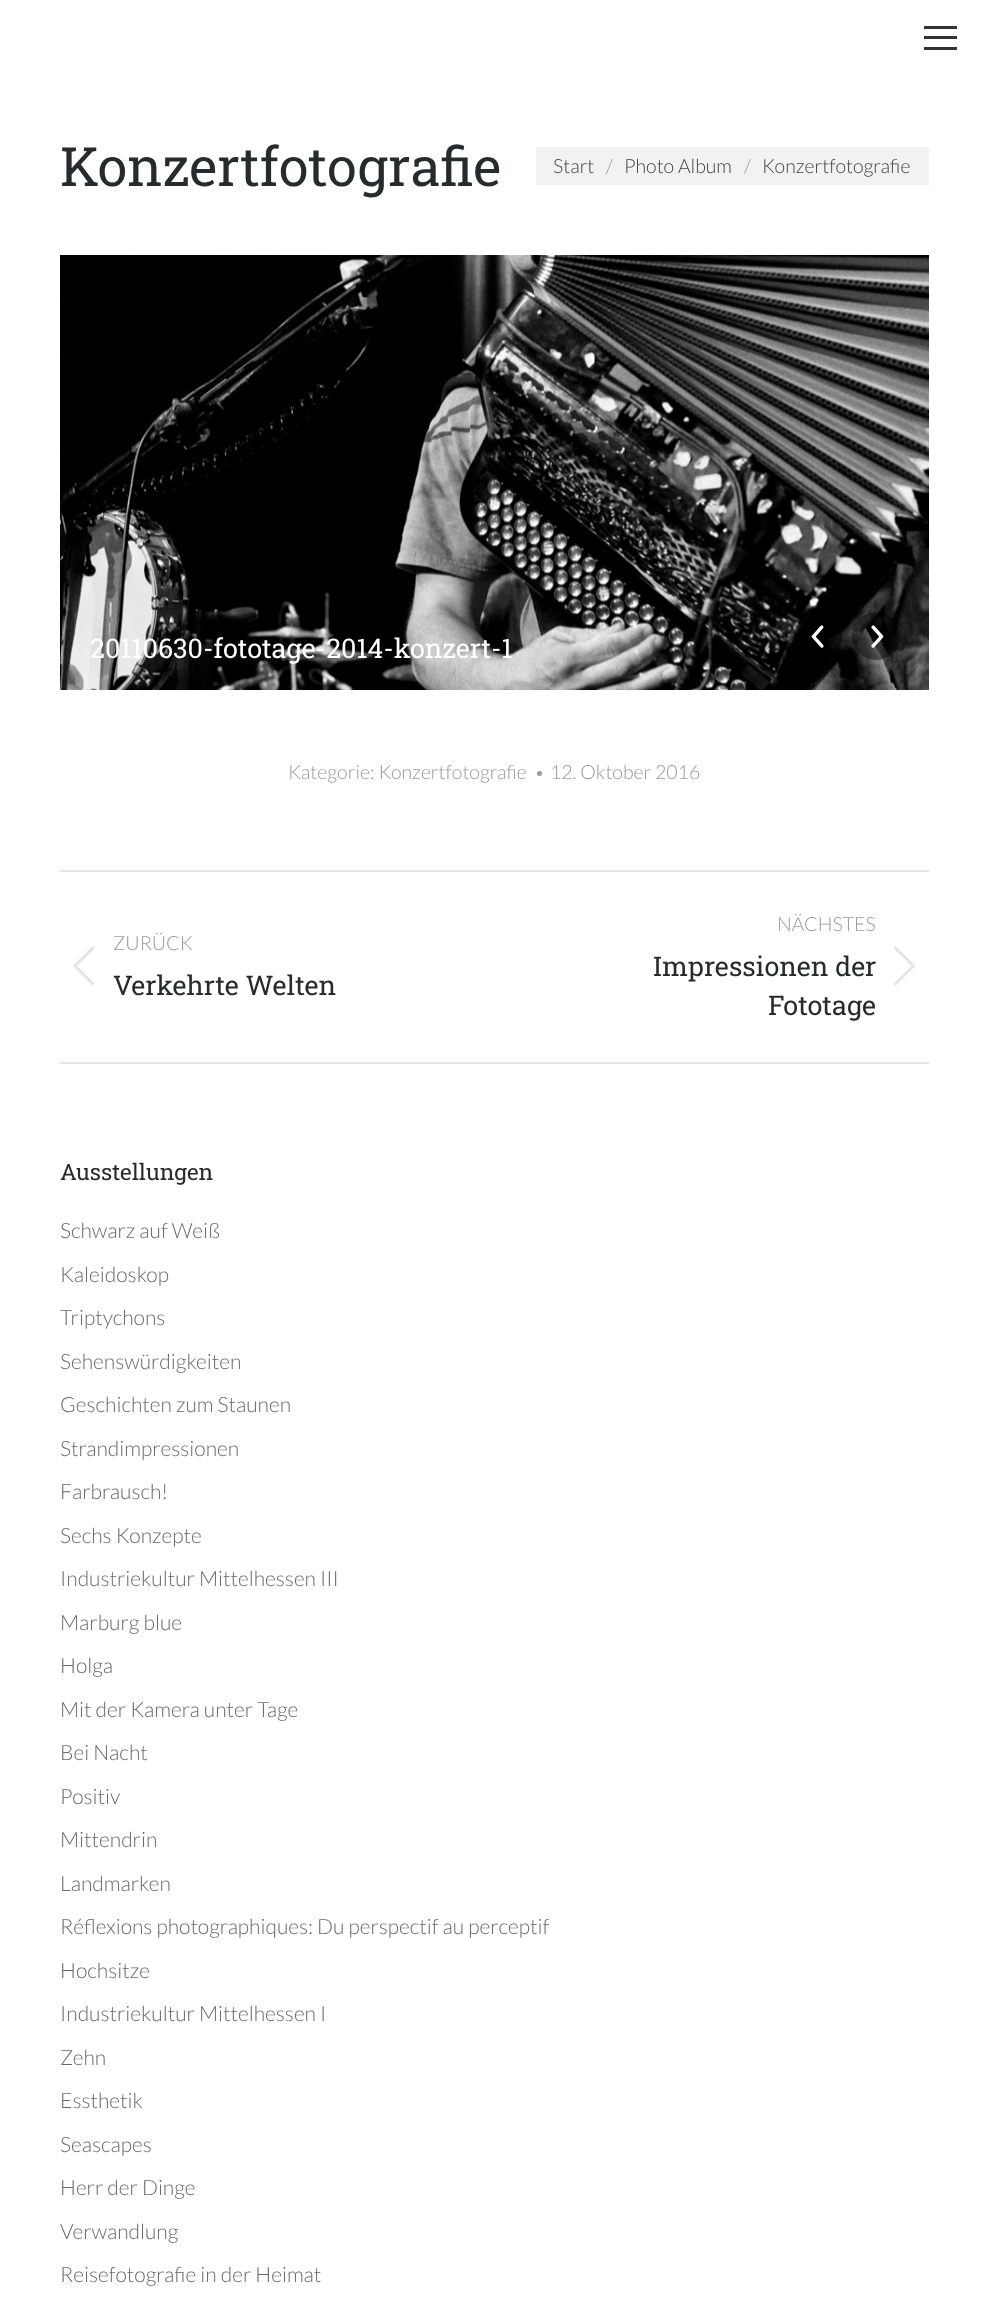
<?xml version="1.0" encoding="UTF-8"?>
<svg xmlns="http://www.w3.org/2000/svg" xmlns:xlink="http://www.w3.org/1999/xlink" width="988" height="2316">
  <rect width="100%" height="100%" fill="#ffffff" />
  <rect x="924" y="26" width="33" height="3" fill="#333333" />
  <rect x="924" y="36" width="33" height="3" fill="#333333" />
  <rect x="924" y="47" width="33" height="3" fill="#333333" />
  <rect x="536" y="147" width="393" height="38" fill="#f2f2f2" />
  <image x="60" y="255" width="869" height="435" xlink:href="image1.png" />
  <circle cx="818" cy="636" r="24" fill="#000000" fill-opacity="0.4" />
  <image x="811" y="625" width="13" height="23" xlink:href="image2.png" />
  <circle cx="876" cy="636" r="24" fill="#000000" fill-opacity="0.4" />
  <image x="871" y="625" width="13" height="23" xlink:href="image3.png" />
  <circle cx="539.5" cy="773.5" r="2.5" fill="#999999" />
  <rect x="60" y="870" width="869" height="2" fill="#e6e6e6" />
  <rect x="60" y="1062" width="869" height="2" fill="#e6e6e6" />
  <image x="73" y="946" width="22" height="40" xlink:href="image4.png" />
  <image x="894" y="946" width="21" height="40" xlink:href="image5.png" />
  <text x="60" y="186" style="font-family: Roboto Slab; font-size: 54px; fill: #262b2e">Konzertfotografie</text>
  <text x="553" y="173" style="font-family: Lato; font-size: 19.5px; font-weight: 300; fill: #424242">Start</text>
  <text x="606" y="173" style="font-family: Lato; font-size: 19.5px; font-weight: 300; fill: #999999">/</text>
  <text x="624" y="173" style="font-family: Lato; font-size: 19.5px; font-weight: 300; fill: #424242">Photo Album</text>
  <text x="744" y="173" style="font-family: Lato; font-size: 19.5px; font-weight: 300; fill: #999999">/</text>
  <text x="762" y="173" style="font-family: Lato; font-size: 19.5px; font-weight: 300; fill: #424242">Konzertfotografie</text>
  <text x="90" y="658" style="font-family: Roboto Slab; font-size: 27px; fill: #ffffff">20110630-fototage-2014-konzert-1</text>
  <text x="288" y="779" style="font-family: Lato; font-size: 19.5px; font-weight: 300; fill: #999999">Kategorie: Konzertfotografie</text>
  <text x="550" y="779" style="font-family: Lato; font-size: 19.5px; font-weight: 300; fill: #999999">12. Oktober 2016</text>
  <text x="113" y="950" style="font-family: Lato; font-size: 19.5px; font-weight: 300; fill: #999999">ZURÜCK</text>
  <text x="113" y="995" style="font-family: Roboto Slab; font-size: 27px; fill: #262b2e">Verkehrte Welten</text>
  <text x="777" y="931" style="font-family: Lato; font-size: 19.5px; font-weight: 300; fill: #999999">NÄCHSTES</text>
  <text x="653" y="976" style="font-family: Roboto Slab; font-size: 27px; fill: #262b2e">Impressionen der</text>
  <text x="768" y="1015" style="font-family: Roboto Slab; font-size: 27px; fill: #262b2e">Fototage</text>
  <text x="60" y="1180" style="font-family: Roboto Slab; font-size: 22.5px; fill: #262b2e">Ausstellungen</text>
  <text x="60" y="1238" style="font-family: Lato; font-size: 21px; font-weight: 300; fill: #676b6d">Schwarz auf Weiß</text>
  <text x="60" y="1282" style="font-family: Lato; font-size: 21px; font-weight: 300; fill: #676b6d">Kaleidoskop</text>
  <text x="60" y="1325" style="font-family: Lato; font-size: 21px; font-weight: 300; fill: #676b6d">Triptychons</text>
  <text x="60" y="1369" style="font-family: Lato; font-size: 21px; font-weight: 300; fill: #676b6d">Sehenswürdigkeiten</text>
  <text x="60" y="1412" style="font-family: Lato; font-size: 21px; font-weight: 300; fill: #676b6d">Geschichten zum Staunen</text>
  <text x="60" y="1456" style="font-family: Lato; font-size: 21px; font-weight: 300; fill: #676b6d">Strandimpressionen</text>
  <text x="60" y="1499" style="font-family: Lato; font-size: 21px; font-weight: 300; fill: #676b6d">Farbrausch!</text>
  <text x="60" y="1543" style="font-family: Lato; font-size: 21px; font-weight: 300; fill: #676b6d">Sechs Konzepte</text>
  <text x="60" y="1586" style="font-family: Lato; font-size: 21px; font-weight: 300; fill: #676b6d">Industriekultur Mittelhessen III</text>
  <text x="60" y="1630" style="font-family: Lato; font-size: 21px; font-weight: 300; fill: #676b6d">Marburg blue</text>
  <text x="60" y="1673" style="font-family: Lato; font-size: 21px; font-weight: 300; fill: #676b6d">Holga</text>
  <text x="60" y="1717" style="font-family: Lato; font-size: 21px; font-weight: 300; fill: #676b6d">Mit der Kamera unter Tage</text>
  <text x="60" y="1760" style="font-family: Lato; font-size: 21px; font-weight: 300; fill: #676b6d">Bei Nacht</text>
  <text x="60" y="1804" style="font-family: Lato; font-size: 21px; font-weight: 300; fill: #676b6d">Positiv</text>
  <text x="60" y="1847" style="font-family: Lato; font-size: 21px; font-weight: 300; fill: #676b6d">Mittendrin</text>
  <text x="60" y="1891" style="font-family: Lato; font-size: 21px; font-weight: 300; fill: #676b6d">Landmarken</text>
  <text x="60" y="1934" style="font-family: Lato; font-size: 21px; font-weight: 300; fill: #676b6d">Réflexions photographiques: Du perspectif au perceptif</text>
  <text x="60" y="1978" style="font-family: Lato; font-size: 21px; font-weight: 300; fill: #676b6d">Hochsitze</text>
  <text x="60" y="2021" style="font-family: Lato; font-size: 21px; font-weight: 300; fill: #676b6d">Industriekultur Mittelhessen I</text>
  <text x="60" y="2065" style="font-family: Lato; font-size: 21px; font-weight: 300; fill: #676b6d">Zehn</text>
  <text x="60" y="2108" style="font-family: Lato; font-size: 21px; font-weight: 300; fill: #676b6d">Essthetik</text>
  <text x="60" y="2152" style="font-family: Lato; font-size: 21px; font-weight: 300; fill: #676b6d">Seascapes</text>
  <text x="60" y="2195" style="font-family: Lato; font-size: 21px; font-weight: 300; fill: #676b6d">Herr der Dinge</text>
  <text x="60" y="2239" style="font-family: Lato; font-size: 21px; font-weight: 300; fill: #676b6d">Verwandlung</text>
  <text x="60" y="2282" style="font-family: Lato; font-size: 21px; font-weight: 300; fill: #676b6d">Reisefotografie in der Heimat</text>
</svg>
